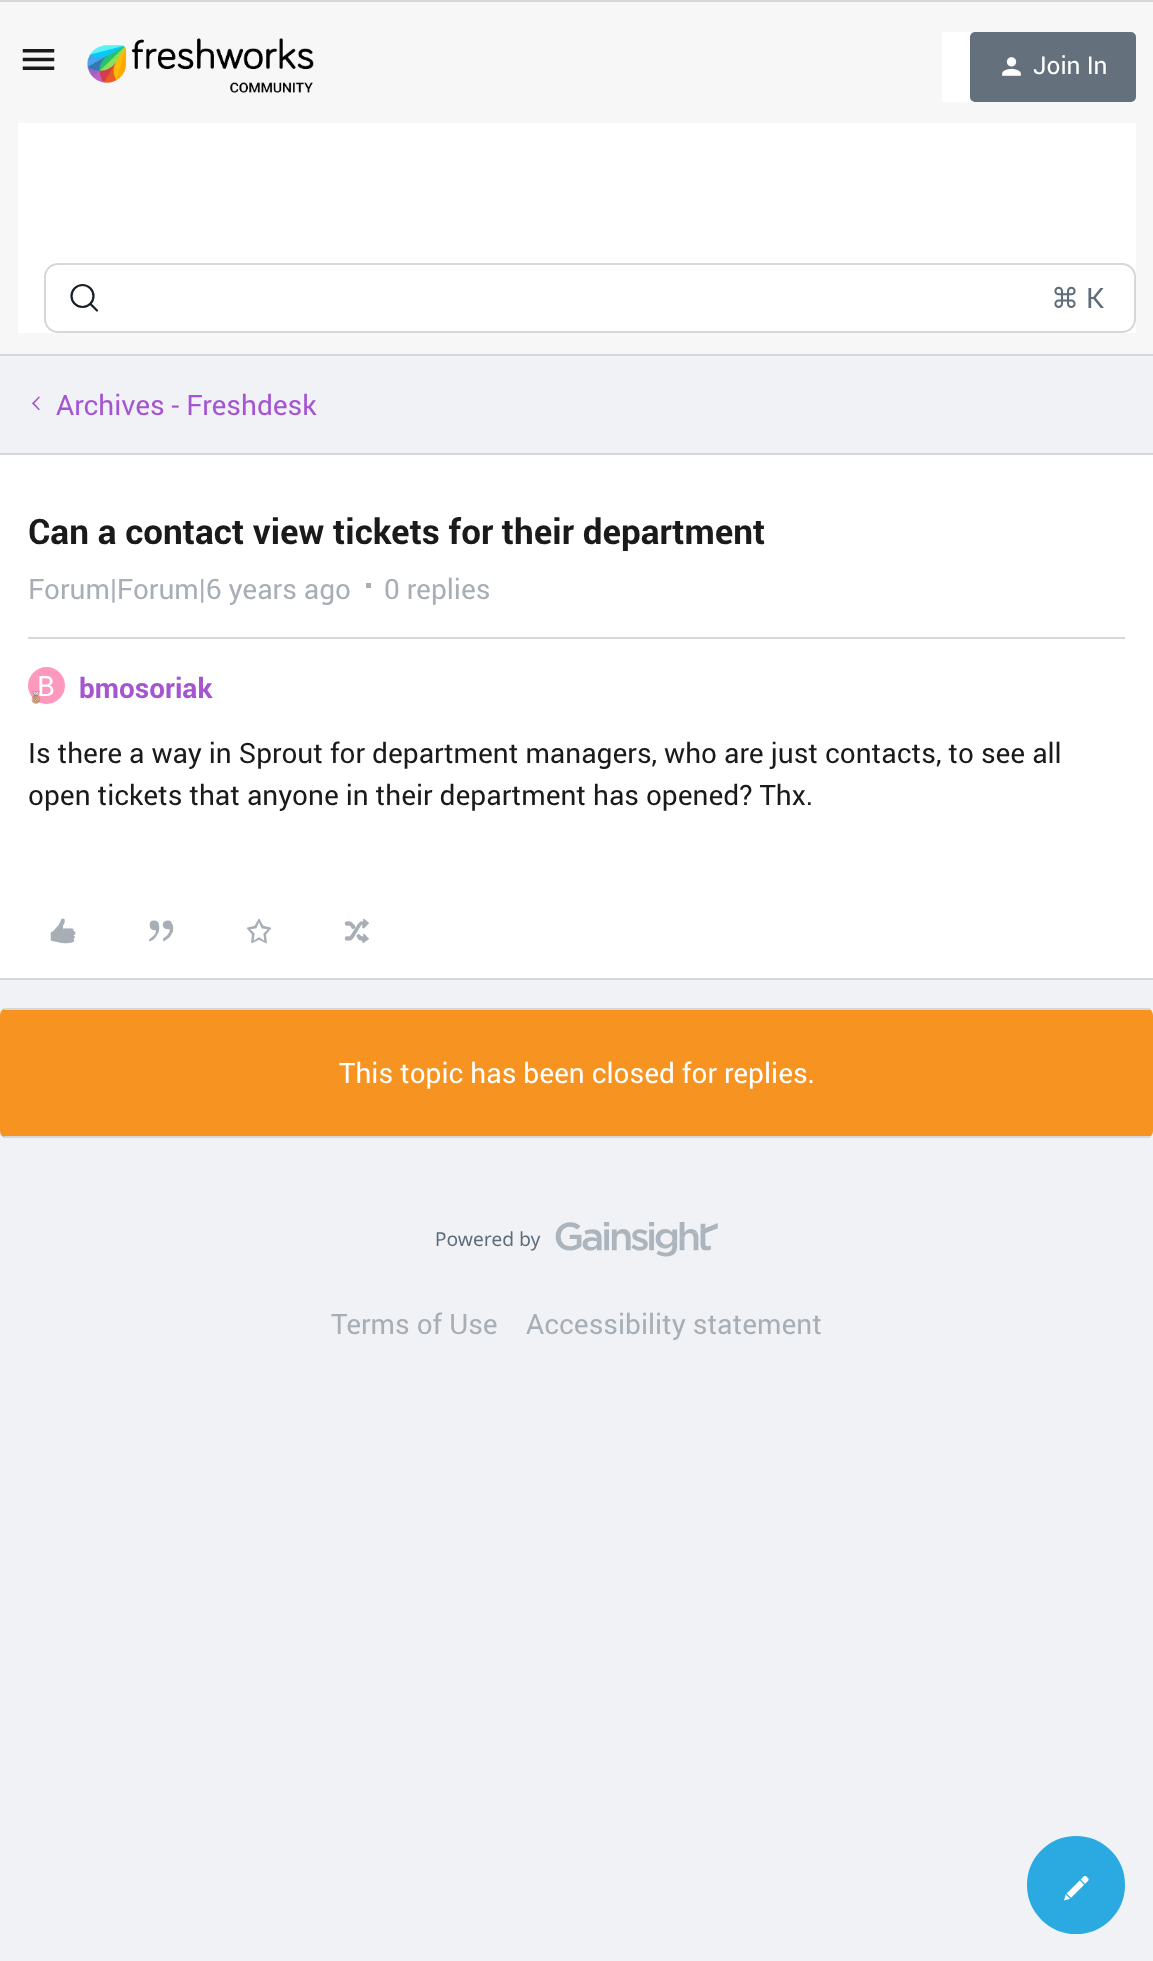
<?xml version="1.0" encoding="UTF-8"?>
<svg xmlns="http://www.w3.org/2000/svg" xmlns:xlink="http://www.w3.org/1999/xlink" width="1153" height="1961">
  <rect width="100%" height="100%" fill="#f0f2f6" />
  <rect y="2" width="1153" height="352" fill="#f7f7f7" />
  <rect width="1153" height="2" fill="#d5d7db" />
  <rect y="354" width="1153" height="2" fill="#d5d7db" />
  <image x="22" y="49" width="33" height="21" xlink:href="image1.png" />
  <image x="87" y="38" width="227" height="55" xlink:href="image2.png" />
  <rect x="942" y="32" width="194" height="70" fill="#ffffff" />
  <rect x="971" y="33" width="164" height="68" rx="4" fill="#64707b" stroke="#64707b" stroke-width="2" />
  <image x="1002" y="57" width="19" height="19" xlink:href="image3.png" />
  <rect x="18" y="123" width="1118" height="210" fill="#ffffff" />
  <rect x="45" y="264" width="1090" height="68" rx="13" fill="none" stroke="#d5d7db" stroke-width="2" />
  <circle cx="82.5" cy="296" r="11" fill="none" stroke="#181f26" stroke-width="2.2" />
  <path d="M 90.5 304 l 6.5 6.5" fill="none" stroke="#181f26" stroke-width="2.2" stroke-linecap="round" />
  <image x="32" y="396" width="8" height="15" xlink:href="image4.png" />
  <rect y="455" width="1153" height="523" fill="#ffffff" />
  <rect y="453" width="1153" height="2" fill="#d5d7db" />
  <rect y="978" width="1153" height="2" fill="#d5d7db" />
  <rect x="366" y="583" width="5" height="5" fill="#a7aeb5" />
  <rect x="28" y="637" width="1097" height="2" fill="#d5d7db" />
  <circle cx="46.5" cy="685.5" r="18.5" fill="#ff98bd" />
  <image x="50" y="918" width="26" height="26" xlink:href="image6.png" />
  <image x="148" y="920" width="26" height="22" xlink:href="image7.png" />
  <image x="246" y="918" width="26" height="26" xlink:href="image8.png" />
  <image x="344" y="918" width="26" height="26" xlink:href="image9.png" />
  <rect y="1008" width="1153" height="130" rx="7" fill="#f79321" />
  <rect x="4" y="1008" width="1146" height="2" fill="#d5d7db" />
  <rect x="4" y="1136" width="1146" height="2" fill="#d5d7db" />
  <image x="436" y="1222" width="282" height="35" xlink:href="image10.png" />
  <circle cx="1076" cy="1885" r="48" fill="#2aaae1" stroke="#2aaae1" stroke-width="2" />
  <image x="1064" y="1876" width="25" height="25" xlink:href="image11.png" />
  <text x="1033" y="74" style="font-family: Roboto; font-size: 24.5px; fill: #ffffff">Join In</text>
  <text x="1051" y="308" style="font-family: DejaVu Sans; font-size: 28px; fill: #5f6c7a">⌘</text>
  <text x="1086" y="308" style="font-family: Roboto; font-size: 28px; fill: #5f6c7a">K</text>
  <text x="56" y="415" style="font-family: Roboto; font-size: 28px; fill: #a555d0">Archives - Freshdesk</text>
  <text x="28" y="544" style="font-family: Roboto; font-size: 35px; font-weight: bold; fill: #1a1a1a">Can a contact view tickets for their department</text>
  <text x="28" y="599" style="font-family: Roboto; font-size: 28px; fill: #a7aeb5">Forum|Forum|6 years ago</text>
  <text x="384" y="599" style="font-family: Roboto; font-size: 28px; fill: #a7aeb5">0 replies</text>
  <text x="37" y="696" style="font-family: Roboto; font-size: 28px; fill: #ffffff">B</text>
  <image x="31" y="691" width="10" height="13" xlink:href="image5.png" />
  <text x="79" y="698" style="font-family: Roboto; font-size: 28px; font-weight: bold; fill: #a555d0">bmosoriak</text>
  <text x="28" y="763" style="font-family: Roboto; font-size: 28px; fill: #1a1a1a">Is there a way in Sprout for department managers, who are just contacts, to see all</text>
  <text x="28" y="805" style="font-family: Roboto; font-size: 28px; fill: #1a1a1a">open tickets that anyone in their department has opened? Thx.</text>
  <text x="339" y="1083" style="font-family: Roboto; font-size: 28px; fill: #ffffff">This topic has been closed for replies.</text>
  <text x="331" y="1334" style="font-family: Roboto; font-size: 28px; fill: #a7aeb5">Terms of Use</text>
  <text x="526" y="1334" style="font-family: Roboto; font-size: 28px; fill: #a7aeb5">Accessibility statement</text>
</svg>
